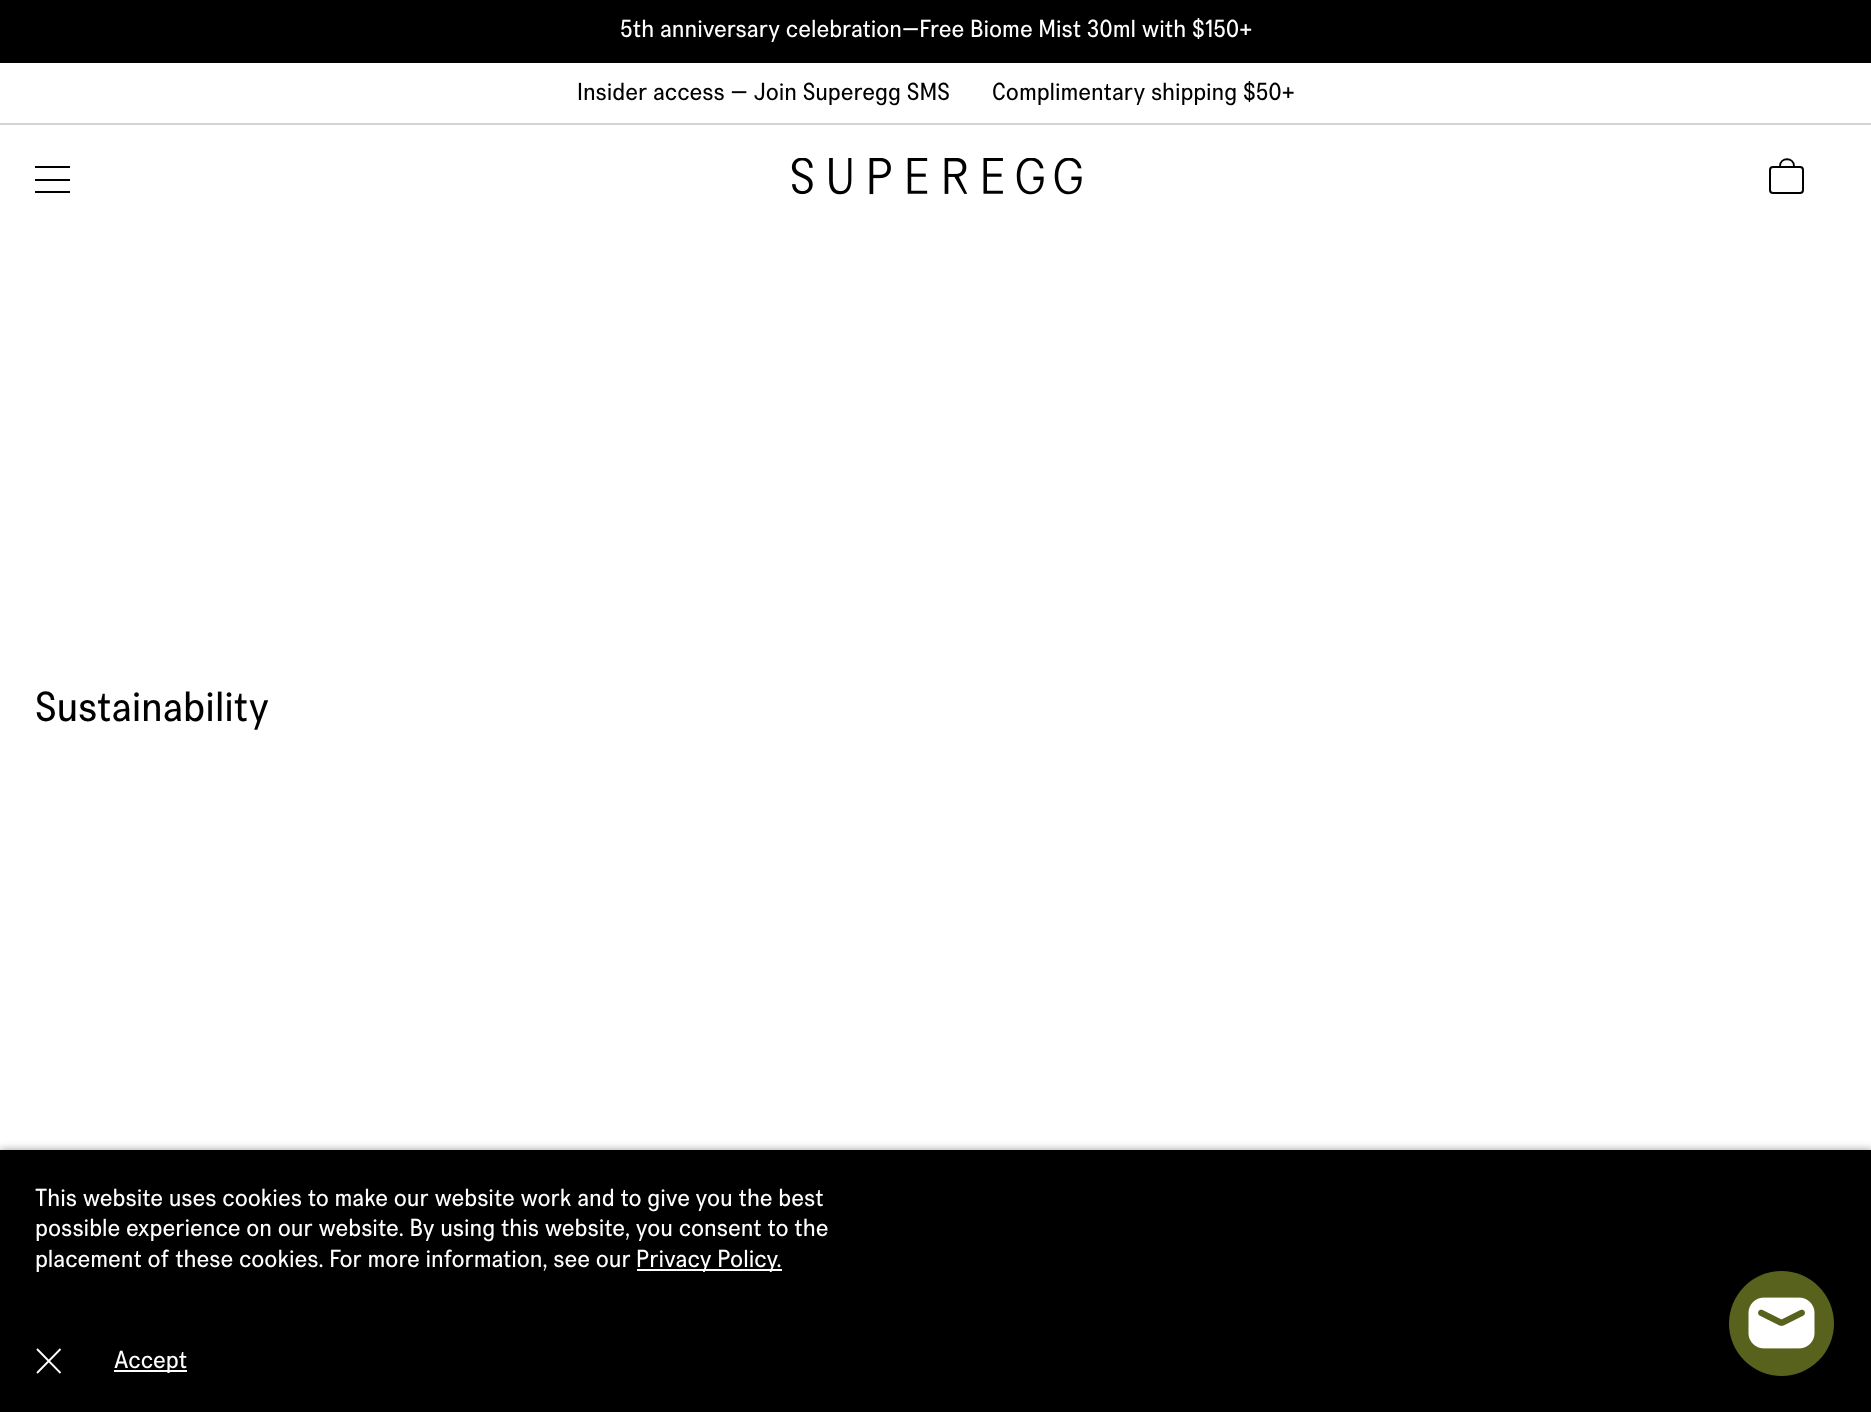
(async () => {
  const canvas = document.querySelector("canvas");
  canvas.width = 1871;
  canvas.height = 1412;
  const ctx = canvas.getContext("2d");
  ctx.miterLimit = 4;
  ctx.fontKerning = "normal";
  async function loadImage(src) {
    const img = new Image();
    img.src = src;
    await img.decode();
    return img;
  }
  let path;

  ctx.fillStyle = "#ffffff";
  ctx.fillRect(0, 0, 1871, 1412);
  for (const [x, y, w, h, color] of [
    [0, 0, 1871, 63, "#000000"],
    [0, 123, 1871, 2, "#d4d4d4"],
    [35, 166, 35, 2, "#000000"],
    [35, 179, 35, 2, "#000000"],
    [35, 191, 35, 2, "#000000"],
  ]) {
    ctx.fillStyle = color;
    ctx.fillRect(x, y, w, h);
  }
  ctx.drawImage(await loadImage("img/1.png"), 791, 158, 291, 37);
  path = new Path2D("M1794 166C1794 157 1780 157 1780 166");
  ctx.strokeStyle = "#000000";
  ctx.lineWidth = 1.8;
  ctx.stroke(path);
  ctx.beginPath();
  ctx.roundRect(1770, 167, 33, 26, 3);
  ctx.lineWidth = 2;
  ctx.stroke();
  ctx.fillStyle = "rgba(0, 0, 0, 0.4)";
  ctx.filter = "blur(4.5px)";
  ctx.beginPath();
  ctx.rect(0, 1150, 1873, 262);
  ctx.fill();
  ctx.filter = "none";
  ctx.fillStyle = "#000000";
  ctx.fillRect(0, 1150, 1871, 262);
  ctx.fillStyle = "#ffffff";
  ctx.fillRect(637, 1269, 145, 2);
  path = new Path2D("M60.5 1373L37 1349M37 1373L60.5 1349");
  ctx.strokeStyle = "#ffffff";
  ctx.lineWidth = 1.8;
  ctx.stroke(path);
  ctx.fillRect(114, 1370, 73, 2);
  ctx.fillStyle = "#59621d";
  ctx.beginPath();
  ctx.arc(1781.5, 1323.5, 52.5, 0, Math.PI * 2);
  ctx.fill();
  ctx.drawImage(await loadImage("img/2.png"), 1748, 1297, 67, 52);
  ctx.font = "24.5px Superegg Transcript";
  ctx.fillStyle = "#ffffff";
  ctx.fillText("5th anniversary celebration—Free Biome Mist 30ml with $150+", 620, 37);
  ctx.fillStyle = "#000000";
  ctx.fillText("Insider access — Join Superegg SMS", 577, 100);
  ctx.fillText("Complimentary shipping $50+", 992, 100);
  ctx.font = "42px Superegg Transcript";
  ctx.fillText("Sustainability", 35, 721);
  ctx.font = "24.5px Superegg Transcript";
  ctx.fillStyle = "#ffffff";
  for (const [text, x, y] of [
    ["This website uses cookies to make our website work and to give you the best", 35, 1206],
    ["possible experience on our website. By using this website, you consent to the", 35, 1236],
    ["placement of these cookies. For more information, see our", 35, 1267],
    ["Privacy Policy.", 636, 1267],
    ["Accept", 114, 1368],
  ]) {
    ctx.fillText(text, x, y);
  }
})();
